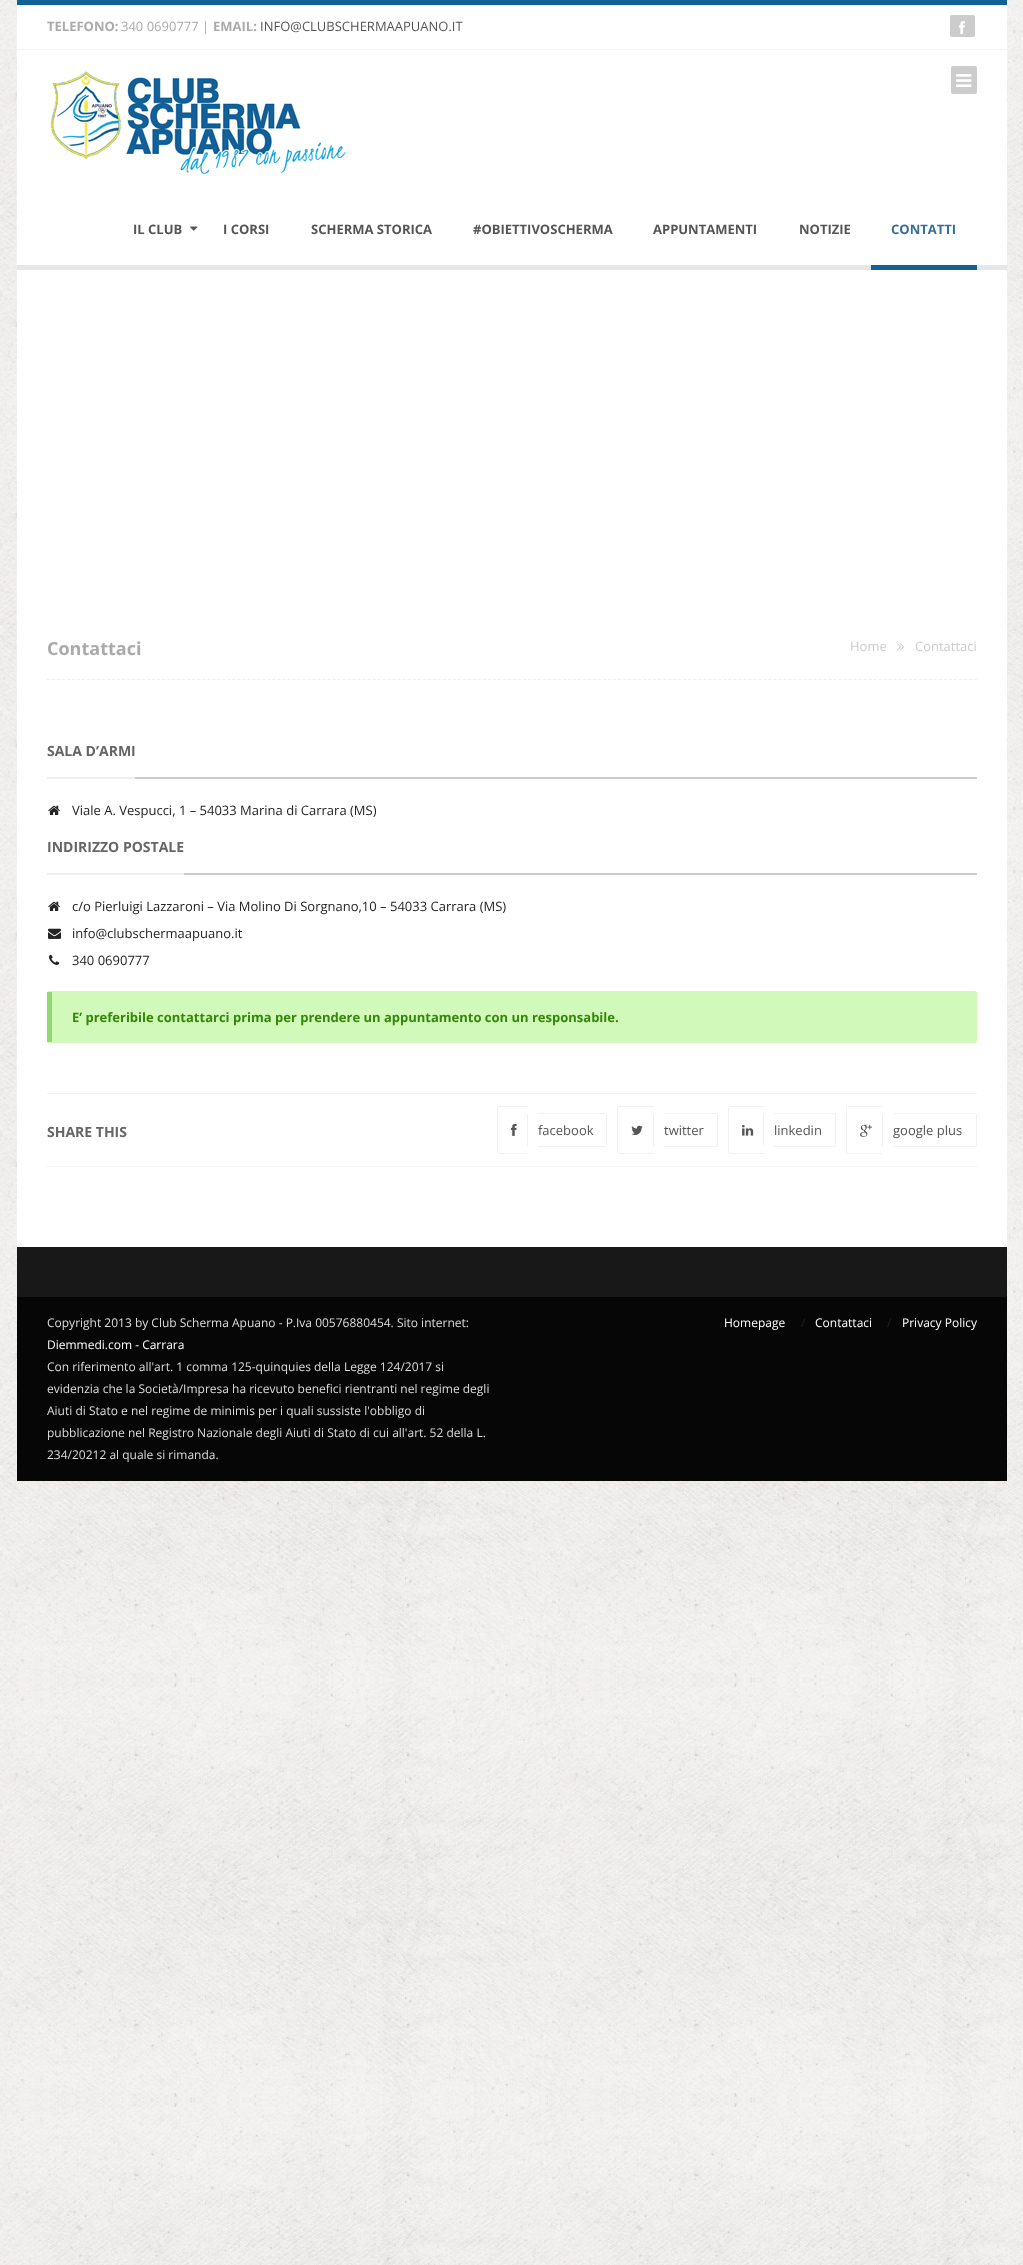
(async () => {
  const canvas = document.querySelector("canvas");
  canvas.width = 1023;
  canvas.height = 2265;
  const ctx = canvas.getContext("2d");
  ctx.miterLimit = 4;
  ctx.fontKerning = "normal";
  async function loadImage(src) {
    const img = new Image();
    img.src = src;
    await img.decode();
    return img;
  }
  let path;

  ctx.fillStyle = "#ffffff";
  ctx.fillRect(0, 0, 1023, 2265);
  ctx.drawImage(await loadImage("img/1.png"), 0, 0, 1023, 2265);
  for (const [x, y, w, h, color] of [
    [17, 5, 990, 1242, "#ffffff"],
    [17, 0, 990, 5, "#136098"],
    [17, 49, 990, 1, "#f1f1f1"],
  ]) {
    ctx.fillStyle = color;
    ctx.fillRect(x, y, w, h);
  }
  ctx.fillStyle = "#cccccc";
  ctx.beginPath();
  ctx.roundRect(950, 15, 25, 22, 2);
  ctx.fill();
  ctx.drawImage(await loadImage("img/2.png"), 959, 21, 6, 13);
  ctx.fillStyle = "#e6e6e6";
  ctx.fillRect(17, 265, 990, 5);
  ctx.drawImage(await loadImage("img/3.png"), 49, 71, 297, 103);
  ctx.fillStyle = "#cccccc";
  ctx.beginPath();
  ctx.roundRect(951, 66, 26, 28, 2);
  ctx.fill();
  ctx.drawImage(await loadImage("img/4.png"), 956, 74, 16, 13);
  ctx.drawImage(await loadImage("img/5.png"), 190, 226, 8, 5);
  ctx.fillStyle = "#136098";
  ctx.fillRect(871, 265, 106, 5);
  path = new Path2D("M47 679.5H977");
  ctx.strokeStyle = "#eeeeee";
  ctx.setLineDash([3, 2.01]);
  ctx.stroke(path);
  ctx.drawImage(await loadImage("img/6.png"), 897, 643, 7, 8);
  ctx.fillStyle = "#cccccc";
  ctx.fillRect(135, 777, 842, 2);
  ctx.fillStyle = "#eeeeee";
  ctx.fillRect(47, 777, 88, 2);
  ctx.drawImage(await loadImage("img/7.png"), 48, 805, 12, 10);
  ctx.fillStyle = "#cccccc";
  ctx.fillRect(184, 873, 793, 2);
  ctx.fillStyle = "#eeeeee";
  ctx.fillRect(47, 873, 137, 2);
  ctx.drawImage(await loadImage("img/7.png"), 48, 901, 12, 10);
  ctx.drawImage(await loadImage("img/8.png"), 48, 928, 13, 11);
  ctx.drawImage(await loadImage("img/9.png"), 49, 954, 11, 11);
  ctx.fillStyle = "#d0f9ba";
  ctx.beginPath();
  ctx.roundRect(47, 991, 930, 52, 2);
  ctx.fill();
  for (const [x, y, w, h, color] of [
    [47, 992, 5, 50, "#94d96f"],
    [47, 1093, 930, 1, "#f1f1f1"],
    [47, 1166, 930, 1, "#f1f1f1"],
    [498, 1106, 30, 1, "#f1f1f1"],
    [498, 1153, 30, 1, "#f1f1f1"],
    [497, 1107, 1, 46, "#f1f1f1"],
    [538, 1113, 68, 1, "#f1f1f1"],
    [606, 1114, 1, 32, "#f1f1f1"],
    [538, 1146, 68, 1, "#f1f1f1"],
    [527, 1114, 1, 32, "#f1f1f1"],
  ]) {
    ctx.fillStyle = color;
    ctx.fillRect(x, y, w, h);
  }
  ctx.drawImage(await loadImage("img/10.png"), 511, 1124, 6, 12);
  for (const [x, y, w, h, color] of [
    [618, 1106, 36, 1, "#f1f1f1"],
    [618, 1153, 36, 1, "#f1f1f1"],
    [617, 1107, 1, 46, "#f1f1f1"],
    [664, 1113, 53, 1, "#f1f1f1"],
    [717, 1114, 1, 32, "#f1f1f1"],
    [664, 1146, 53, 1, "#f1f1f1"],
    [653, 1114, 1, 32, "#f1f1f1"],
  ]) {
    ctx.fillStyle = color;
    ctx.fillRect(x, y, w, h);
  }
  ctx.drawImage(await loadImage("img/11.png"), 631, 1125, 12, 10);
  for (const [x, y, w, h, color] of [
    [729, 1106, 35, 1, "#f1f1f1"],
    [729, 1153, 35, 1, "#f1f1f1"],
    [728, 1107, 1, 46, "#f1f1f1"],
    [774, 1113, 61, 1, "#f1f1f1"],
    [835, 1114, 1, 32, "#f1f1f1"],
    [774, 1146, 61, 1, "#f1f1f1"],
    [763, 1114, 1, 32, "#f1f1f1"],
  ]) {
    ctx.fillStyle = color;
    ctx.fillRect(x, y, w, h);
  }
  ctx.drawImage(await loadImage("img/12.png"), 742, 1124, 12, 12);
  for (const [x, y, w, h, color] of [
    [847, 1106, 36, 1, "#f1f1f1"],
    [847, 1153, 36, 1, "#f1f1f1"],
    [846, 1107, 1, 46, "#f1f1f1"],
    [893, 1113, 83, 1, "#f1f1f1"],
    [976, 1114, 1, 32, "#f1f1f1"],
    [893, 1146, 83, 1, "#f1f1f1"],
    [882, 1114, 1, 32, "#f1f1f1"],
  ]) {
    ctx.fillStyle = color;
    ctx.fillRect(x, y, w, h);
  }
  ctx.drawImage(await loadImage("img/13.png"), 860, 1124, 13, 13);
  ctx.fillStyle = "#181818";
  ctx.fillRect(17, 1247, 990, 50);
  ctx.fillStyle = "#060606";
  ctx.fillRect(17, 1297, 990, 184);
  ctx.font = "bold 13px Open Sans";
  ctx.fillStyle = "#aaaaaa";
  ctx.fillText("TELEFONO:", 47, 31);
  ctx.font = "13px Open Sans";
  ctx.fillText("340 0690777 |", 121, 31);
  ctx.font = "bold 13px Open Sans";
  ctx.fillText("EMAIL:", 213, 31);
  ctx.font = "13px Open Sans";
  ctx.fillStyle = "#555555";
  ctx.fillText("INFO@CLUBSCHERMAAPUANO.IT", 260, 31);
  ctx.font = "bold 13px Open Sans";
  for (const [text, x, y] of [
    ["IL CLUB", 133, 234],
    ["I CORSI", 223, 234],
    ["SCHERMA STORICA", 311, 234],
    ["#OBIETTIVOSCHERMA", 473, 234],
    ["APPUNTAMENTI", 653, 234],
    ["NOTIZIE", 799, 234],
  ]) {
    ctx.fillText(text, x, y);
  }
  ctx.fillStyle = "#346e99";
  ctx.fillText("CONTATTI", 891, 234);
  ctx.font = "bold 18px Open Sans";
  ctx.fillStyle = "#aaaaaa";
  ctx.fillText("Contattaci", 47, 655);
  ctx.font = "13px Open Sans";
  ctx.fillStyle = "#cccccc";
  ctx.fillText("Home", 850, 651);
  ctx.fillText("Contattaci", 915, 651);
  ctx.font = "bold 14px Open Sans";
  ctx.fillStyle = "#666666";
  ctx.fillText("SALA D’ARMI", 47, 756);
  ctx.font = "13px Open Sans";
  ctx.fillStyle = "#232323";
  ctx.fillText("Viale A. Vespucci, 1 – 54033 Marina di Carrara (MS)", 72, 815);
  ctx.font = "bold 14px Open Sans";
  ctx.fillStyle = "#666666";
  ctx.fillText("INDIRIZZO POSTALE", 47, 852);
  ctx.font = "13px Open Sans";
  ctx.fillStyle = "#232323";
  for (const [text, x, y] of [
    ["c/o Pierluigi Lazzaroni – Via Molino Di Sorgnano,10 – 54033 Carrara (MS)", 72, 911],
    ["info@clubschermaapuano.it", 72, 938],
    ["340 0690777", 72, 965],
  ]) {
    ctx.fillText(text, x, y);
  }
  ctx.font = "bold 13px Open Sans";
  ctx.fillStyle = "#348806";
  ctx.fillText("E’ preferibile contattarci prima per prendere un appuntamento con un responsabile.", 72, 1022);
  ctx.font = "bold 14px Open Sans";
  ctx.fillStyle = "#666666";
  ctx.fillText("SHARE THIS", 47, 1137);
  ctx.font = "13px Open Sans";
  ctx.fillStyle = "#555555";
  for (const [text, x, y] of [
    ["facebook", 538, 1135],
    ["twitter", 664, 1135],
    ["linkedin", 774, 1135],
    ["google plus", 893, 1135],
  ]) {
    ctx.fillText(text, x, y);
  }
  ctx.font = "12px Open Sans";
  ctx.fillStyle = "#dddddd";
  ctx.fillText("Copyright 2013 by Club Scherma Apuano - P.Iva 00576880454. Sito internet:", 47, 1327);
  ctx.fillStyle = "#ffffff";
  ctx.fillText("Diemmedi.com - Carrara", 47, 1349);
  ctx.fillStyle = "#dddddd";
  for (const [text, x, y] of [
    ["Con riferimento all'art. 1 comma 125-quinquies della Legge 124/2017 si", 47, 1371],
    ["evidenzia che la Società/Impresa ha ricevuto benefici rientranti nel regime degli", 47, 1393],
    ["Aiuti di Stato e nel regime de minimis per i quali sussiste l'obbligo di", 47, 1415],
    ["pubblicazione nel Registro Nazionale degli Aiuti di Stato di cui all'art. 52 della L.", 47, 1437],
    ["234/20212 al quale si rimanda.", 47, 1459],
  ]) {
    ctx.fillText(text, x, y);
  }
  ctx.fillStyle = "#ffffff";
  ctx.fillText("Homepage", 724, 1327);
  ctx.fillStyle = "#232323";
  ctx.fillText("/", 801, 1327);
  ctx.fillStyle = "#ffffff";
  ctx.fillText("Contattaci", 815, 1327);
  ctx.fillStyle = "#232323";
  ctx.fillText("/", 887, 1327);
  ctx.fillStyle = "#ffffff";
  ctx.fillText("Privacy Policy", 902, 1327);
})();
